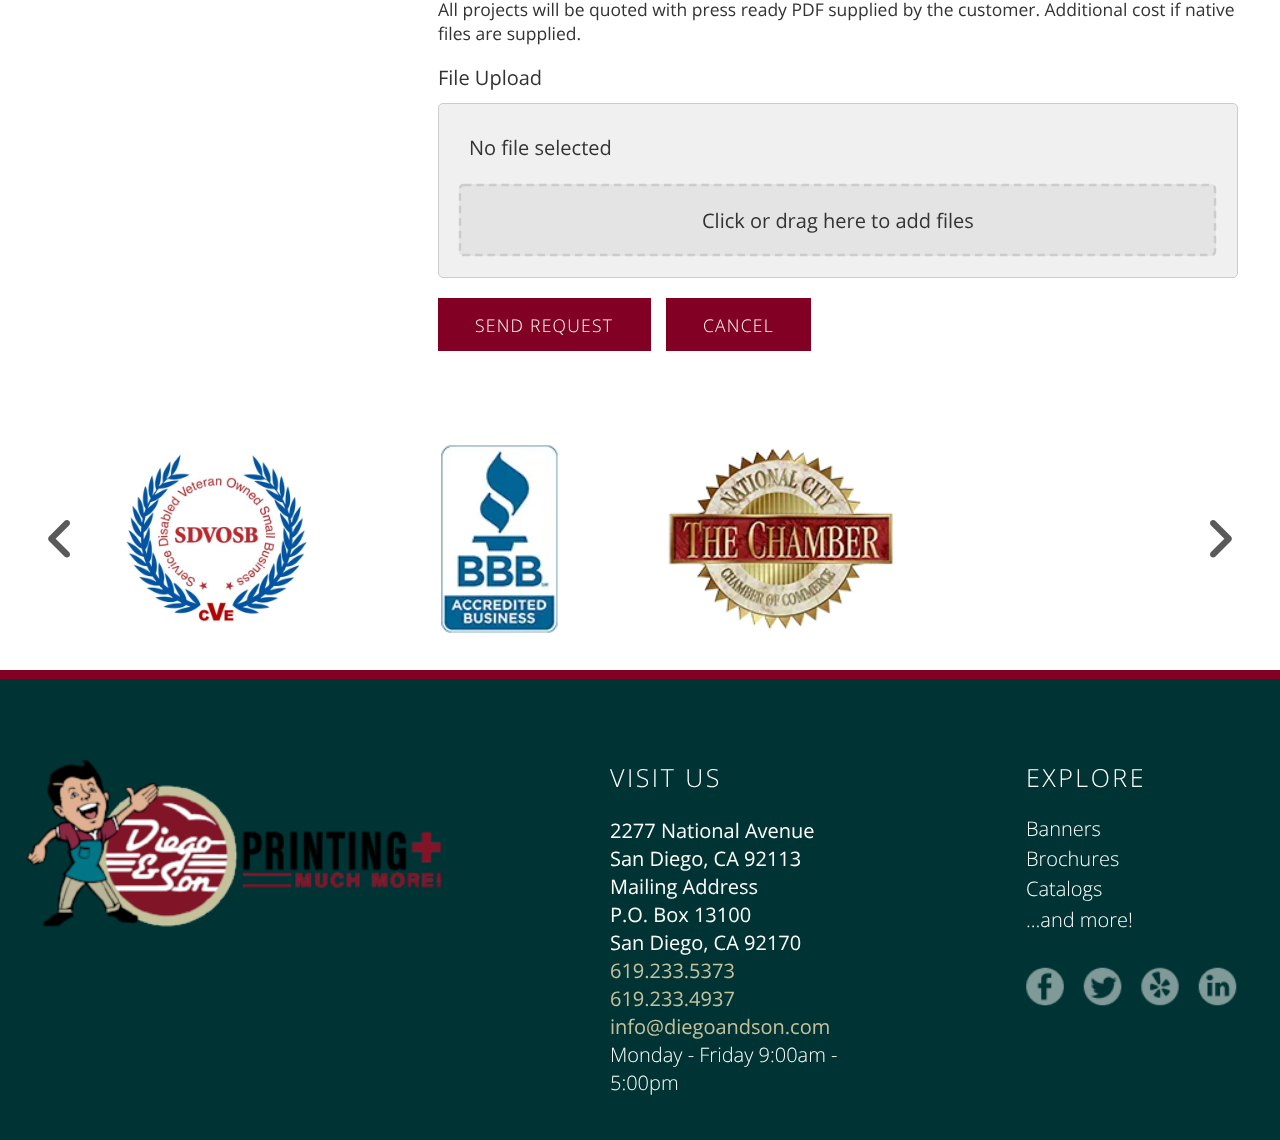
(async () => {
  const canvas = document.querySelector("canvas");
  canvas.width = 1280;
  canvas.height = 1140;
  const ctx = canvas.getContext("2d");
  ctx.miterLimit = 4;
  ctx.fontKerning = "normal";
  async function loadImage(src) {
    const img = new Image();
    img.src = src;
    await img.decode();
    return img;
  }
  let path;

  ctx.fillStyle = "#003333";
  ctx.fillRect(0, 0, 1280, 1140);
  ctx.fillStyle = "#ffffff";
  ctx.fillRect(0, 0, 1280, 670);
  ctx.fillStyle = "#f0f0f0";
  ctx.beginPath();
  ctx.roundRect(438.5, 103.5, 799, 174, 4.5);
  ctx.fill();
  ctx.strokeStyle = "#cccccc";
  ctx.stroke();
  ctx.fillStyle = "#e4e4e4";
  ctx.beginPath();
  ctx.roundRect(459, 184, 757, 72, 5);
  ctx.fill();
  path = new Path2D("M464 185H1211C1213.5 185 1215 186.5 1215 189V251C1215 253.5 1213.5 255 1211 255H464C461.5 255 460 253.5 460 251V189C460 186.5 461.5 185 464 185Z");
  ctx.lineWidth = 2.5;
  ctx.setLineDash([7.5, 5]);
  ctx.stroke(path);
  ctx.fillStyle = "#820024";
  ctx.fillRect(438, 298, 213, 53);
  ctx.fillRect(666, 298, 145, 53);
  ctx.drawImage(await loadImage("img/1.png"), 126, 454, 182, 168);
  ctx.drawImage(await loadImage("img/2.png"), 441, 445, 117, 188);
  ctx.drawImage(await loadImage("img/3.png"), 668, 448, 225, 183);
  ctx.drawImage(await loadImage("img/4.png"), 48, 520, 22, 38);
  ctx.drawImage(await loadImage("img/5.png"), 1210, 520, 22, 38);
  ctx.fillRect(0, 670, 1280, 9);
  ctx.drawImage(await loadImage("img/6.png"), 26, 759, 416, 168);
  ctx.drawImage(await loadImage("img/7.png"), 1026, 967, 38, 39);
  ctx.drawImage(await loadImage("img/8.png"), 1083, 967, 39, 39);
  ctx.drawImage(await loadImage("img/9.png"), 1141, 967, 38, 39);
  ctx.drawImage(await loadImage("img/10.png"), 1198, 967, 39, 39);
  ctx.font = "17.5px Open Sans";
  ctx.fillStyle = "#333333";
  ctx.fillText("All projects will be quoted with press ready PDF supplied by the customer. Additional cost if native", 438, 16);
  ctx.fillText("files are supplied.", 438, 40);
  ctx.font = "20px Open Sans";
  for (const [text, x, y] of [
    ["File Upload", 438, 85],
    ["No file selected", 469, 155],
    ["Click or drag here to add files", 702, 228],
  ]) {
    ctx.fillText(text, x, y);
  }
  ctx.letterSpacing = "1.25px";
  ctx.font = "300 17.5px Open Sans";
  ctx.fillStyle = "#ffffff";
  ctx.fillText("SEND REQUEST", 475, 332);
  ctx.fillText("CANCEL", 703, 332);
  ctx.letterSpacing = "2.5px";
  ctx.font = "300 25px Open Sans";
  ctx.fillText("VISIT US", 610, 787);
  ctx.letterSpacing = "0px";
  ctx.font = "20px Open Sans";
  for (const [text, x, y] of [
    ["2277 National Avenue", 610, 838],
    ["San Diego, CA 92113", 610, 866],
    ["Mailing Address", 610, 894],
    ["P.O. Box 13100", 610, 922],
    ["San Diego, CA 92170", 610, 950],
  ]) {
    ctx.fillText(text, x, y);
  }
  ctx.fillStyle = "#c5c19d";
  for (const [text, x, y] of [
    ["619.233.5373", 610, 978],
    ["619.233.4937", 610, 1006],
    ["info@diegoandson.com", 610, 1034],
  ]) {
    ctx.fillText(text, x, y);
  }
  ctx.font = "300 20px Open Sans";
  ctx.fillStyle = "#ffffff";
  ctx.fillText("Monday - Friday 9:00am -", 610, 1062);
  ctx.fillText("5:00pm", 610, 1090);
  ctx.letterSpacing = "2.5px";
  ctx.font = "300 25px Open Sans";
  ctx.fillText("EXPLORE", 1026, 787);
  ctx.letterSpacing = "0px";
  ctx.font = "300 20px Open Sans";
  for (const [text, x, y] of [
    ["Banners", 1026, 836],
    ["Brochures", 1026, 866],
    ["Catalogs", 1026, 896],
    ["...and more!", 1026, 927],
  ]) {
    ctx.fillText(text, x, y);
  }
})();
